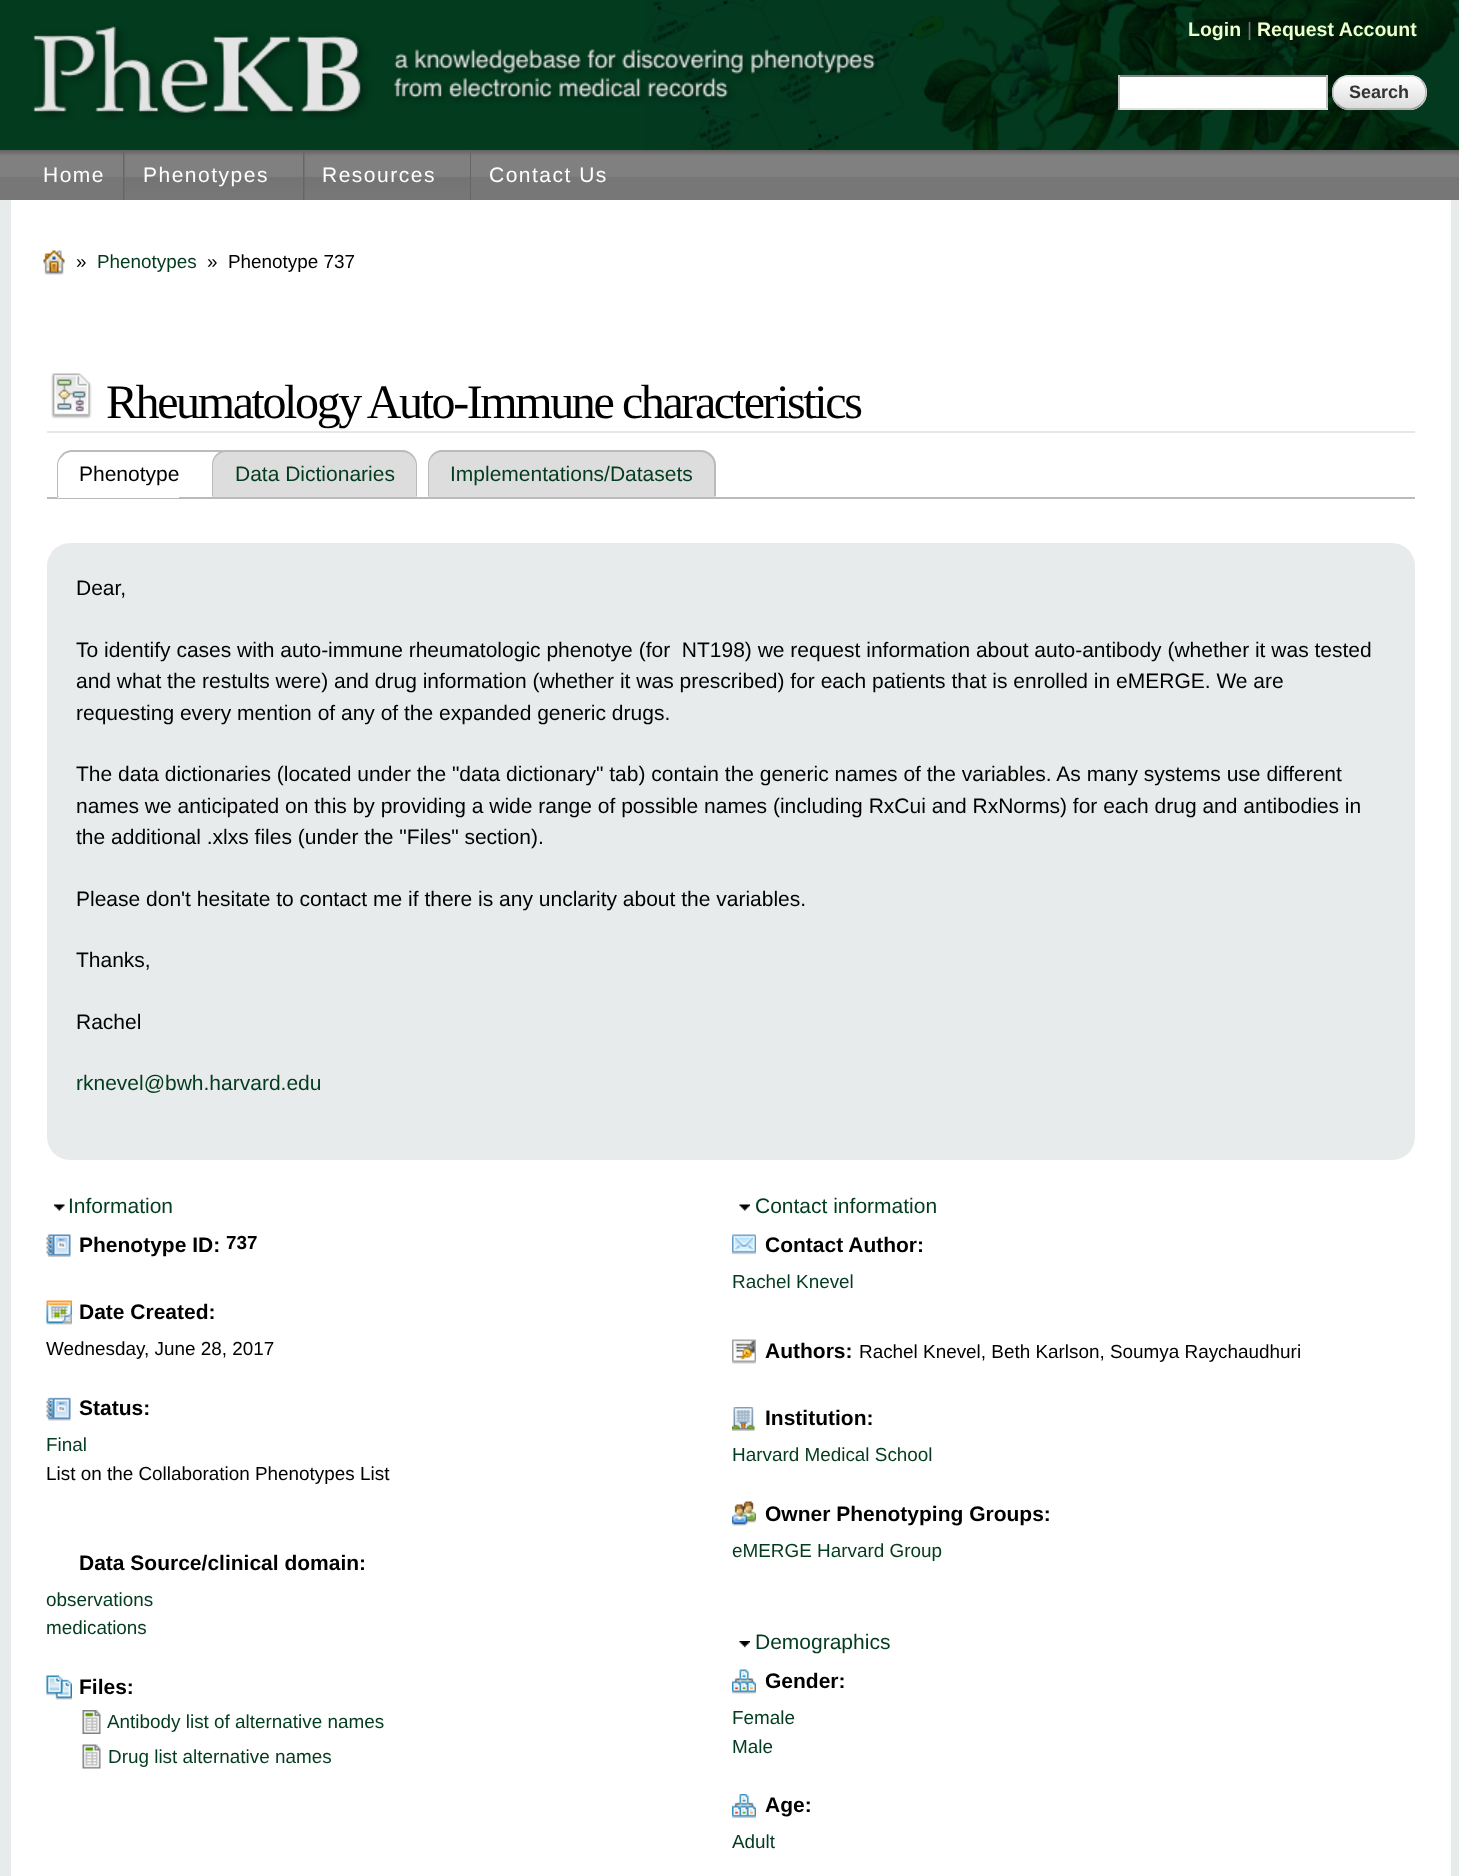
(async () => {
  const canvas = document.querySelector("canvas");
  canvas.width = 1459;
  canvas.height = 1876;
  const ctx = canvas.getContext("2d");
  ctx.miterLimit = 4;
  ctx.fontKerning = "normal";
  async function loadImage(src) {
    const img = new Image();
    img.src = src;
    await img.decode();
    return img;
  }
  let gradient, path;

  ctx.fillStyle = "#e8ebeb";
  ctx.fillRect(0, 0, 1459, 1876);
  ctx.fillStyle = "#033b1e";
  ctx.fillRect(0, 0, 644, 150);
  ctx.drawImage(await loadImage("img/1.png"), 644, 0, 815, 150);
  ctx.drawImage(await loadImage("img/2.png"), 33, 26, 845, 94);
  for (const [x, y, w, h, color] of [
    [1120, 77, 206, 31, "#ffffff"],
    [1118, 75, 210, 2, "#848484"],
    [1326, 75, 2, 35, "#c1c1c1"],
    [1118, 108, 210, 2, "#e1e1e1"],
    [1118, 75, 2, 35, "#c1c1c1"],
  ]) {
    ctx.fillStyle = color;
    ctx.fillRect(x, y, w, h);
  }
  ctx.save();
  ctx.beginPath();
  ctx.roundRect(1332, 75, 95, 35, 17);
  ctx.clip();
  gradient = ctx.createLinearGradient(1334, 45, 1334, 77);
  gradient.addColorStop(0, "#ffffff");
  gradient.addColorStop(1, "#dddddd");
  ctx.fillStyle = gradient;
  ctx.fillRect(1341, 75, 77, 2);
  gradient = ctx.createLinearGradient(1334, 77, 1334, 108);
  gradient.addColorStop(0, "#ffffff");
  gradient.addColorStop(1, "#dddddd");
  ctx.fillStyle = gradient;
  ctx.fillRect(1332, 77, 95, 31);
  gradient = ctx.createLinearGradient(1334, 108, 1334, 140);
  gradient.addColorStop(0, "#ffffff");
  gradient.addColorStop(1, "#dddddd");
  ctx.fillStyle = gradient;
  ctx.fillRect(1341, 108, 77, 2);
  ctx.restore();
  path = new Path2D("M1337.5 80.5C1340.5 77.5 1344.5 76 1348.5 76H1410C1414 76 1418 77.5 1421 80.5");
  ctx.strokeStyle = "#dddddd";
  ctx.lineWidth = 1.5;
  ctx.stroke(path);
  path = new Path2D("M1421 80.5C1427.5 86.5 1427.5 98 1421 104");
  ctx.strokeStyle = "#bbbbbb";
  ctx.stroke(path);
  path = new Path2D("M1421 104C1418 107 1414 109 1410 109H1348.5C1344.5 109 1340.5 107 1337.5 104");
  ctx.strokeStyle = "#999999";
  ctx.stroke(path);
  path = new Path2D("M1337.5 104C1331 98 1331 86.5 1337.5 80.5");
  ctx.strokeStyle = "#bbbbbb";
  ctx.stroke(path);
  ctx.fillStyle = "#777777";
  ctx.fillRect(0, 177, 1459, 23);
  ctx.drawImage(await loadImage("img/3.png"), 0, 150, 1459, 27);
  ctx.drawImage(await loadImage("img/4.png"), 26, 150, 97, 27);
  ctx.fillStyle = "#666666";
  ctx.fillRect(123, 150, 2, 50);
  ctx.drawImage(await loadImage("img/5.png"), 124, 150, 179, 50);
  ctx.fillRect(303, 150, 2, 50);
  ctx.drawImage(await loadImage("img/6.png"), 304, 150, 166, 50);
  ctx.fillRect(470, 150, 1, 50);
  ctx.drawImage(await loadImage("img/7.png"), 471, 150, 156, 27);
  ctx.fillStyle = "#ffffff";
  ctx.fillRect(11, 200, 1440, 1676);
  ctx.drawImage(await loadImage("img/8.png"), 43, 250, 22, 25);
  ctx.drawImage(await loadImage("img/9.png"), 51, 373, 41, 46);
  ctx.fillStyle = "#e8e8e8";
  ctx.fillRect(47, 431, 1368, 2);
  ctx.fillStyle = "#bbbbbb";
  ctx.fillRect(47, 497, 1368, 2);
  ctx.fillStyle = "#ffffff";
  ctx.beginPath();
  ctx.roundRect(57, 450, 122, 48, [15, 0, 0, 0]);
  ctx.fill();
  ctx.fillStyle = "#bbbbbb";
  path = new Path2D("M72 450C68 450 64 452 62 454L63 456C65 453 69 452 72 452H178V450Z");
  ctx.fill(path);
  path = new Path2D("M57 498L59 496H58V465C58 461 60 458 63 456L62 454C59 457 57 461 57 465Z");
  ctx.fill(path);
  path = new Path2D("M178 450H291C295 450 299 452 302 454L300 456C298 454 294 452 291 452H178Z");
  ctx.fill(path);
  ctx.fillStyle = "#dddddd";
  ctx.beginPath();
  ctx.roundRect(212, 450, 205, 47, [15, 15, 0, 0]);
  ctx.fill();
  ctx.fillStyle = "#bbbbbb";
  path = new Path2D("M226 450H402C410 450 417 457 417 465V496H212V465C212 457 218 450 226 450ZM226 452H402C409 452 416 458 416 465V496H213V465C213 458 219 452 226 452Z");
  ctx.fill(path, "evenodd");
  ctx.fillStyle = "#dddddd";
  ctx.beginPath();
  ctx.roundRect(428, 450, 288, 47, [15, 15, 0, 0]);
  ctx.fill();
  ctx.fillStyle = "#bbbbbb";
  path = new Path2D("M442 450H700C709 450 716 457 716 465V496H428V465C428 457 434 450 442 450ZM442 452H700C708 452 714 458 714 465V496H429V465C429 458 435 452 442 452Z");
  ctx.fill(path, "evenodd");
  ctx.fillStyle = "#e8ebeb";
  ctx.beginPath();
  ctx.roundRect(47, 543, 1368, 617, 23);
  ctx.fill();
  ctx.drawImage(await loadImage("img/10.png"), 54, 1204, 11, 7);
  ctx.drawImage(await loadImage("img/11.png"), 46, 1234, 25, 23);
  ctx.drawImage(await loadImage("img/12.png"), 46, 1300, 26, 25);
  ctx.drawImage(await loadImage("img/13.png"), 46, 1397, 25, 24);
  ctx.drawImage(await loadImage("img/14.png"), 46, 1675, 26, 25);
  ctx.drawImage(await loadImage("img/15.png"), 82, 1710, 19, 24);
  ctx.drawImage(await loadImage("img/16.png"), 82, 1744, 19, 25);
  ctx.drawImage(await loadImage("img/17.png"), 739, 1204, 11, 7);
  ctx.drawImage(await loadImage("img/18.png"), 732, 1234, 24, 21);
  ctx.drawImage(await loadImage("img/19.png"), 732, 1339, 24, 25);
  ctx.drawImage(await loadImage("img/20.png"), 732, 1407, 23, 24);
  ctx.drawImage(await loadImage("img/21.png"), 732, 1501, 24, 25);
  ctx.drawImage(await loadImage("img/22.png"), 739, 1641, 11, 7);
  ctx.drawImage(await loadImage("img/23.png"), 732, 1669, 24, 25);
  ctx.drawImage(await loadImage("img/24.png"), 732, 1794, 24, 24);
  ctx.font = "bold 19.5px Liberation Sans";
  ctx.fillStyle = "#eeffcc";
  ctx.fillText("Login", 1188, 36);
  ctx.font = "19.5px Liberation Sans";
  ctx.fillStyle = "#777777";
  ctx.fillText("|", 1247, 36);
  ctx.font = "bold 19.5px Liberation Sans";
  ctx.fillStyle = "#eeffcc";
  ctx.fillText("Request Account", 1257, 36);
  ctx.font = "bold 18px Liberation Sans";
  ctx.fillStyle = "#333333";
  ctx.fillText("Search", 1349, 98);
  ctx.letterSpacing = "1.5px";
  ctx.font = "21px Liberation Sans";
  ctx.fillStyle = "#ffffff";
  for (const [text, x, y] of [
    ["Home", 43, 182],
    ["Phenotypes", 143, 182],
    ["Resources", 322, 182],
    ["Contact Us", 489, 182],
  ]) {
    ctx.fillText(text, x, y);
  }
  ctx.letterSpacing = "0px";
  ctx.font = "18.9px Liberation Sans";
  ctx.fillStyle = "#000000";
  ctx.fillText("»", 76, 268);
  ctx.fillStyle = "#033b1e";
  ctx.fillText("Phenotypes", 97, 268);
  ctx.fillStyle = "#000000";
  ctx.fillText("»", 207, 268);
  ctx.fillText("Phenotype 737", 228, 268);
  ctx.letterSpacing = "-2.4px";
  ctx.font = "48px Liberation Serif";
  ctx.fillText("Rheumatology Auto-Immune characteristics", 106, 418);
  ctx.letterSpacing = "0px";
  ctx.font = "21px Liberation Sans";
  ctx.fillText("Phenotype", 79, 481);
  ctx.fillStyle = "#033b1e";
  ctx.fillText("Data Dictionaries", 235, 481);
  ctx.fillText("Implementations/Datasets", 450, 481);
  ctx.fillStyle = "#000000";
  for (const [text, x, y] of [
    ["Dear,", 76, 595],
    ["To identify cases with auto-immune rheumatologic phenotye (for  NT198) we request information about auto-antibody (whether it was tested", 76, 657],
    ["and what the restults were) and drug information (whether it was prescribed) for each patients that is enrolled in eMERGE. We are", 76, 688],
    ["requesting every mention of any of the expanded generic drugs.", 76, 720],
    ["The data dictionaries (located under the \"data dictionary\" tab) contain the generic names of the variables. As many systems use different", 76, 781],
    ["names we anticipated on this by providing a wide range of possible names (including RxCui and RxNorms) for each drug and antibodies in", 76, 813],
    ["the additional .xlxs files (under the \"Files\" section).", 76, 844],
    ["Please don't hesitate to contact me if there is any unclarity about the variables.", 76, 906],
    ["Thanks,", 76, 967],
    ["Rachel", 76, 1029],
  ]) {
    ctx.fillText(text, x, y);
  }
  ctx.fillStyle = "#033b1e";
  ctx.fillText("rknevel@bwh.harvard.edu", 76, 1090);
  ctx.fillText("Information", 68, 1213);
  ctx.font = "bold 21px Liberation Sans";
  ctx.fillStyle = "#000000";
  ctx.fillText("Phenotype ID:", 79, 1252);
  ctx.font = "bold 18.9px Liberation Sans";
  ctx.fillText("737", 226, 1249);
  ctx.font = "bold 21px Liberation Sans";
  ctx.fillText("Date Created:", 79, 1319);
  ctx.font = "18.9px Liberation Sans";
  ctx.fillText("Wednesday, June 28, 2017", 46, 1355);
  ctx.font = "bold 21px Liberation Sans";
  ctx.fillText("Status:", 79, 1415);
  ctx.font = "18.9px Liberation Sans";
  ctx.fillStyle = "#033b1e";
  ctx.fillText("Final", 46, 1451);
  ctx.fillStyle = "#000000";
  ctx.fillText("List on the Collaboration Phenotypes List", 46, 1480);
  ctx.font = "bold 21px Liberation Sans";
  ctx.fillText("Data Source/clinical domain:", 79, 1570);
  ctx.font = "18.9px Liberation Sans";
  ctx.fillStyle = "#033b1e";
  ctx.fillText("observations", 46, 1606);
  ctx.fillText("medications", 46, 1634);
  ctx.font = "bold 21px Liberation Sans";
  ctx.fillStyle = "#000000";
  ctx.fillText("Files:", 79, 1694);
  ctx.font = "18.9px Liberation Sans";
  ctx.fillStyle = "#033b1e";
  ctx.fillText("Antibody list of alternative names", 107, 1728);
  ctx.fillText("Drug list alternative names", 108, 1763);
  ctx.font = "21px Liberation Sans";
  ctx.fillText("Contact information", 755, 1213);
  ctx.font = "bold 21px Liberation Sans";
  ctx.fillStyle = "#000000";
  ctx.fillText("Contact Author:", 765, 1252);
  ctx.font = "18.9px Liberation Sans";
  ctx.fillStyle = "#033b1e";
  ctx.fillText("Rachel Knevel", 732, 1288);
  ctx.font = "bold 21px Liberation Sans";
  ctx.fillStyle = "#000000";
  ctx.fillText("Authors:", 765, 1358);
  ctx.font = "18.9px Liberation Sans";
  ctx.fillText("Rachel Knevel, Beth Karlson, Soumya Raychaudhuri", 859, 1358);
  ctx.font = "bold 21px Liberation Sans";
  ctx.fillText("Institution:", 765, 1425);
  ctx.font = "18.9px Liberation Sans";
  ctx.fillStyle = "#033b1e";
  ctx.fillText("Harvard Medical School", 732, 1461);
  ctx.font = "bold 21px Liberation Sans";
  ctx.fillStyle = "#000000";
  ctx.fillText("Owner Phenotyping Groups:", 765, 1521);
  ctx.font = "18.9px Liberation Sans";
  ctx.fillStyle = "#033b1e";
  ctx.fillText("eMERGE Harvard Group", 732, 1557);
  ctx.font = "21px Liberation Sans";
  ctx.fillText("Demographics", 755, 1649);
  ctx.font = "bold 21px Liberation Sans";
  ctx.fillStyle = "#000000";
  ctx.fillText("Gender:", 765, 1688);
  ctx.font = "18.9px Liberation Sans";
  ctx.fillStyle = "#033b1e";
  ctx.fillText("Female", 732, 1724);
  ctx.fillText("Male", 732, 1753);
  ctx.font = "bold 21px Liberation Sans";
  ctx.fillStyle = "#000000";
  ctx.fillText("Age:", 765, 1812);
  ctx.font = "18.9px Liberation Sans";
  ctx.fillStyle = "#033b1e";
  ctx.fillText("Adult", 732, 1848);
})();
